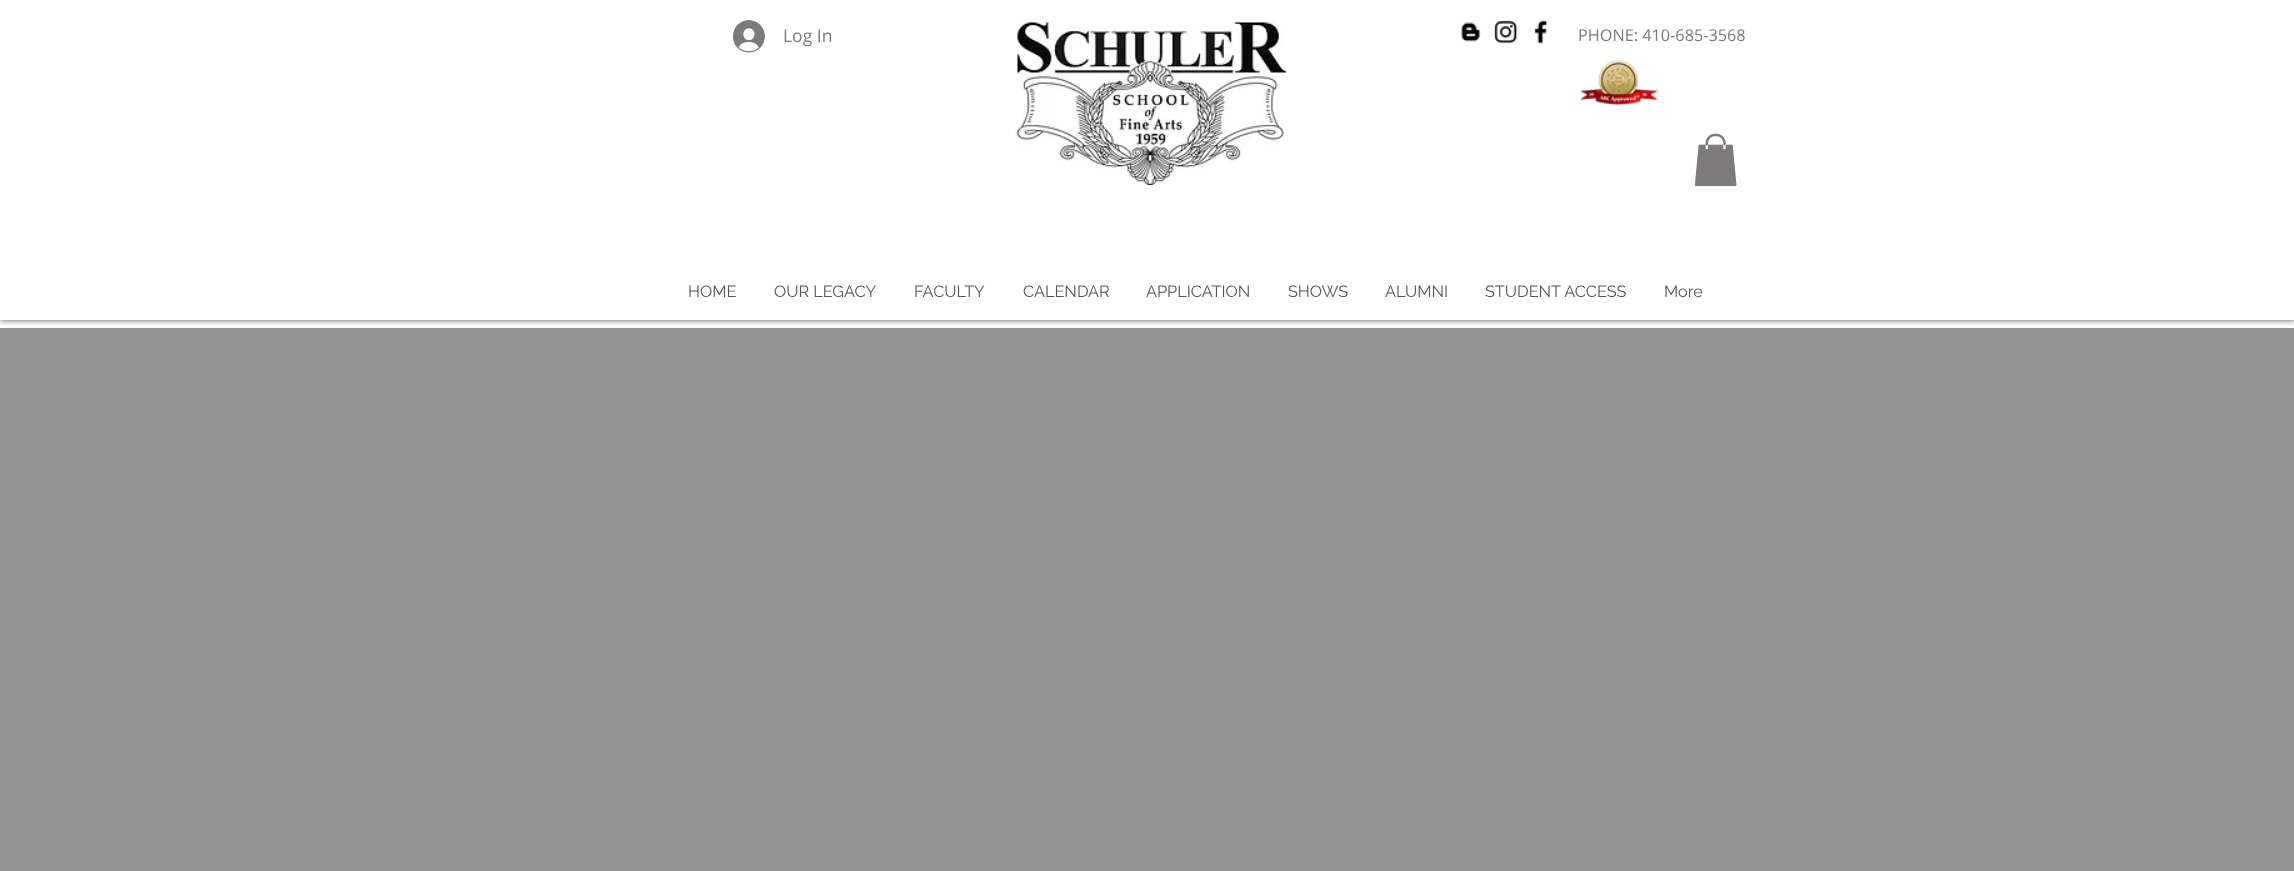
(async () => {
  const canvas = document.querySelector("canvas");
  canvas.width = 2294;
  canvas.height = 871;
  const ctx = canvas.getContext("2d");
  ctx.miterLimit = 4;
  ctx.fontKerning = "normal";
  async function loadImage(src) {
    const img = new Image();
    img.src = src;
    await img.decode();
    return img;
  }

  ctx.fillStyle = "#ffffff";
  ctx.fillRect(0, 0, 2294, 871);
  ctx.fillStyle = "rgba(0, 0, 0, 0.7)";
  ctx.filter = "blur(3px)";
  ctx.beginPath();
  ctx.rect(0, 0, 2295, 320);
  ctx.fill();
  ctx.filter = "none";
  ctx.fillStyle = "#ffffff";
  ctx.fillRect(0, 0, 2294, 320);
  ctx.drawImage(await loadImage("img/1.png"), 733, 20, 32, 33);
  ctx.drawImage(await loadImage("img/2.png"), 1015, 19, 272, 166);
  ctx.drawImage(await loadImage("img/3.png"), 1461, 22, 20, 20);
  ctx.drawImage(await loadImage("img/4.png"), 1494, 20, 24, 24);
  ctx.drawImage(await loadImage("img/5.png"), 1534, 20, 14, 24);
  ctx.drawImage(await loadImage("img/6.png"), 1580, 59, 78, 47);
  ctx.drawImage(await loadImage("img/7.png"), 1694, 133, 43, 54);
  ctx.fillStyle = "#939393";
  ctx.fillRect(0, 328, 2294, 543);
  ctx.font = "17.5px Open Sans";
  ctx.fillStyle = "#7c7a7a";
  ctx.fillText("Log In", 783, 42);
  ctx.font = "16.25px Open Sans";
  ctx.fillText("PHONE: 410-685-3568", 1578, 41);
  ctx.font = "16.25px Raleway";
  ctx.fillStyle = "#555555";
  for (const [text, x, y] of [
    ["HOME", 688, 297],
    ["OUR LEGACY", 774, 297],
    ["FACULTY", 914, 297],
    ["CALENDAR", 1023, 297],
    ["APPLICATION", 1146, 297],
    ["SHOWS", 1288, 297],
    ["ALUMNI", 1385, 297],
    ["STUDENT ACCESS", 1485, 297],
    ["More", 1664, 297],
  ]) {
    ctx.fillText(text, x, y);
  }
})();
